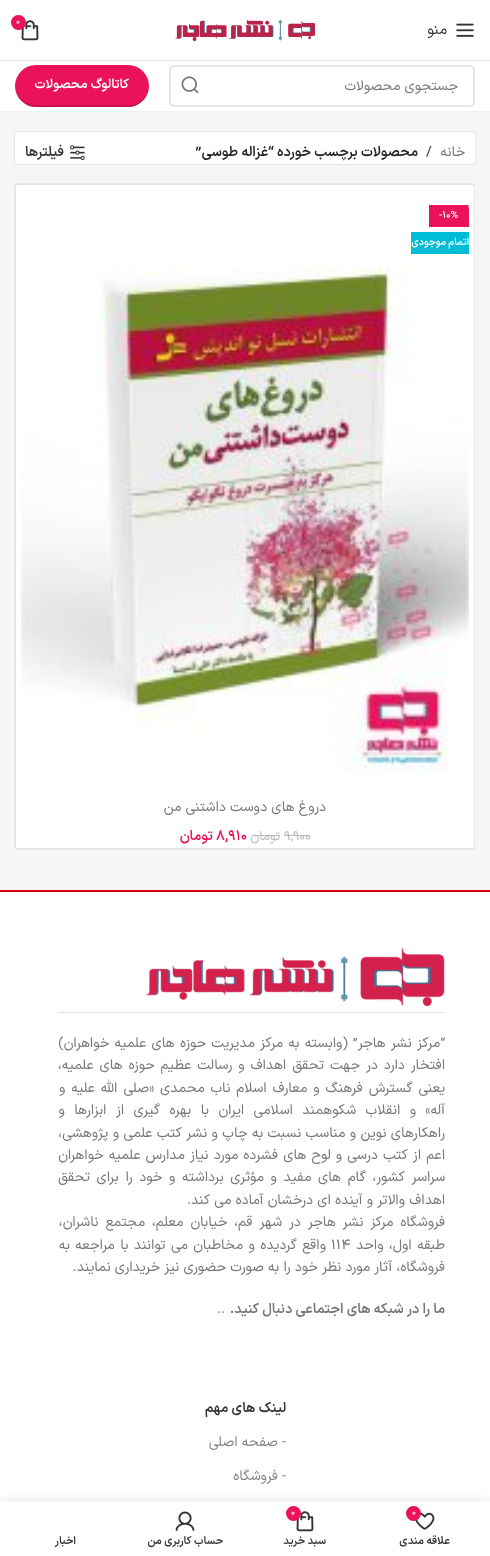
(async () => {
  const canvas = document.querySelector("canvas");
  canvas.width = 490;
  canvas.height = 1556;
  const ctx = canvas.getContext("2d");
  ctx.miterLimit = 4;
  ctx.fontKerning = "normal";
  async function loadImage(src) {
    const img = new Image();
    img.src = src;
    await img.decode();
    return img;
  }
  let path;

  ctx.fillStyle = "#ffffff";
  ctx.fillRect(0, 0, 490, 1556);
  ctx.fillStyle = "#e6e6e6";
  ctx.fillRect(0, 60, 490, 1);
  ctx.drawImage(await loadImage("img/1.png"), 175, 19, 140, 22);
  ctx.drawImage(await loadImage("img/2.png"), 21, 20, 18, 21);
  ctx.fillStyle = "#ea1359";
  ctx.beginPath();
  ctx.arc(18.5, 22.5, 7.5, 0, Math.PI * 2);
  ctx.fill();
  ctx.drawImage(await loadImage("img/3.png"), 456, 23, 18, 14);
  ctx.fillStyle = "#f2f2f2";
  ctx.fillRect(0, 111, 490, 1);
  ctx.beginPath();
  ctx.roundRect(170, 66, 304, 40, 4);
  ctx.strokeStyle = "#e6e6e6";
  ctx.lineWidth = 2;
  ctx.stroke();
  ctx.drawImage(await loadImage("img/4.png"), 181, 76, 18, 18);
  ctx.fillStyle = "#ea1359";
  ctx.beginPath();
  ctx.roundRect(15, 65, 134, 42, 21);
  ctx.fill();
  ctx.fillStyle = "rgba(0, 0, 0, 0.15)";
  path = new Path2D("M15 85C15 95 22 105 32 107H51H132C142 105 149 95 149 85C148 97 140 105 128 105H36C24 105 16 97 15 85Z");
  ctx.fill(path);
  ctx.fillStyle = "#f6f6f6";
  ctx.fillRect(0, 112, 490, 778);
  ctx.fillStyle = "#e6e6e6";
  ctx.filter = "blur(0.5px)";
  ctx.beginPath();
  ctx.roundRect(14, 131, 462, 34, 4);
  ctx.fill();
  ctx.filter = "none";
  ctx.fillStyle = "#ffffff";
  ctx.beginPath();
  ctx.roundRect(15, 132, 460, 32, 3);
  ctx.fill();
  ctx.drawImage(await loadImage("img/5.png"), 70, 145, 15, 15);
  ctx.fillStyle = "#dcdcdc";
  ctx.fillRect(474, 184, 1, 665);
  ctx.fillStyle = "#e6e6e6";
  ctx.filter = "blur(0.5px)";
  ctx.beginPath();
  ctx.roundRect(14, 183, 461, 667, 4);
  ctx.fill();
  ctx.filter = "none";
  ctx.fillStyle = "#ffffff";
  ctx.beginPath();
  ctx.roundRect(15, 184, 459, 665, 3);
  ctx.fill();
  ctx.fillStyle = "rgba(0, 0, 0, 0.11)";
  path = new Path2D("M18 184H471C473 184 474 185 474 187V846C474 848 473 849 471 849H18C16 849 15 848 15 846V187C15 185 16 184 18 184ZM18 185H471C473 185 474 186 474 187V846C474 847 473 848 471 848H18C17 848 16 847 16 846V187C16 186 17 185 18 185Z");
  ctx.fill(path, "evenodd");
  ctx.save();
  ctx.beginPath();
  ctx.roundRect(21, 190, 448, 599, 20);
  ctx.clip();
  ctx.fillStyle = "#ea1359";
  ctx.fillRect(429, 205, 40, 22);
  ctx.restore();
  ctx.fillStyle = "#00bcd4";
  ctx.fillRect(411, 232, 58, 22);
  ctx.drawImage(await loadImage("img/6.png"), 21, 266, 448, 507);
  for (const [x, y, w, h, color] of [
    [284, 835, 26, 1, "#bbbbbb"],
    [252, 835, 28, 1, "#bbbbbb"],
    [0, 890, 490, 2, "#cf0606"],
    [58, 1012, 387, 1, "#e1e1e1"],
  ]) {
    ctx.fillStyle = color;
    ctx.fillRect(x, y, w, h);
  }
  ctx.drawImage(await loadImage("img/7.png"), 145, 948, 300, 58);
  ctx.fillStyle = "rgba(0, 0, 0, 0.12)";
  ctx.filter = "blur(4.5px)";
  ctx.beginPath();
  ctx.rect(0, 1501, 490, 55);
  ctx.fill();
  ctx.filter = "none";
  ctx.fillStyle = "#ffffff";
  ctx.fillRect(0, 1501, 490, 55);
  ctx.drawImage(await loadImage("img/8.png"), 415, 1512, 20, 18);
  ctx.fillStyle = "#ea1359";
  ctx.beginPath();
  ctx.arc(413.5, 1513.5, 7.5, 0, Math.PI * 2);
  ctx.fill();
  ctx.drawImage(await loadImage("img/2.png"), 296, 1511, 18, 21);
  ctx.beginPath();
  ctx.arc(293.5, 1513.5, 7.5, 0, Math.PI * 2);
  ctx.fill();
  ctx.drawImage(await loadImage("img/9.png"), 175, 1511, 20, 20);
  ctx.font = "9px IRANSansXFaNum";
  ctx.fillStyle = "#ffffff";
  ctx.fillText("0", 16, 24);
  ctx.direction = "rtl";
  ctx.font = "15px IRANSansXFaNum";
  ctx.fillStyle = "#333333";
  ctx.fillText("منو", 447, 34);
  ctx.font = "14px IRANSansXFaNum";
  ctx.fillStyle = "#767676";
  ctx.fillText("جستجوی محصولات", 458, 90);
  ctx.font = "600 13px IRANSansXFaNum";
  ctx.fillStyle = "#ffffff";
  ctx.fillText("کاتالوگ محصولات", 129, 88);
  ctx.font = "14px IRANSansXFaNum";
  ctx.fillStyle = "#767676";
  ctx.fillText("خانه", 465, 156);
  ctx.direction = "ltr";
  ctx.fillStyle = "#3a3a3a";
  ctx.fillText("/", 426, 156);
  ctx.direction = "rtl";
  ctx.font = "600 14px IRANSansXFaNum";
  ctx.fillStyle = "#242424";
  ctx.fillText("محصولات برچسب خورده", 418, 156);
  ctx.fillText("“غزاله طوسی”", 274, 156);
  ctx.fillStyle = "#333333";
  ctx.fillText("فیلترها", 64, 156);
  ctx.direction = "ltr";
  ctx.font = "600 10px IRANSansXFaNum";
  ctx.fillStyle = "#ffffff";
  ctx.fillText("-10%", 439, 218);
  ctx.direction = "rtl";
  ctx.fillText("اتمام موجودی", 469, 245);
  ctx.font = "14px IRANSansXFaNum";
  ctx.fillStyle = "#767676";
  ctx.fillText("دروغ های دوست داشتنی من", 326, 811);
  ctx.direction = "ltr";
  ctx.font = "13px IRANSansXFaNum";
  ctx.fillStyle = "#bbbbbb";
  ctx.fillText("9,900", 284, 840);
  ctx.direction = "rtl";
  ctx.fillText("تومان", 280, 840);
  ctx.direction = "ltr";
  ctx.font = "600 14px IRANSansXFaNum";
  ctx.fillStyle = "#ea1359";
  ctx.fillText("8,910", 216, 840);
  ctx.direction = "rtl";
  ctx.fillText("تومان", 213, 840);
  ctx.wordSpacing = "1.1px";
  ctx.font = "14px IRANSansXFaNum";
  ctx.fillStyle = "#767676";
  ctx.fillText("“مرکز نشر هاجر” (وابسته به مرکز مدیریت حوزه های علمیه خواهران)", 445, 1047);
  ctx.wordSpacing = "1.75px";
  ctx.fillText("افتخار دارد در جهت تحقق اهداف و رسالت عظیم حوزه های علمیه،", 445, 1069);
  ctx.fillText("یعنی گسترش فرهنگ و معارف اسلام ناب محمدی «صلی الله علیه و", 445, 1092);
  ctx.wordSpacing = "5.25px";
  ctx.fillText("آله» و انقلاب شکوهمند اسلامی ایران با بهره گیری از ابزارها و", 445, 1114);
  ctx.wordSpacing = "0.25px";
  ctx.fillText("راهکارهای نوین و مناسب نسبت به چاپ و نشر کتب علمی و پژوهشی،", 445, 1137);
  ctx.wordSpacing = "0.9px";
  ctx.fillText("اعم از کتب درسی و لوح های فشرده مورد نیاز مدارس علمیه خواهران", 445, 1159);
  ctx.wordSpacing = "2.5px";
  ctx.fillText("سراسر کشور، گام های مفید و مؤثری برداشته و خود را برای تحقق", 445, 1181);
  ctx.wordSpacing = "0px";
  ctx.fillText("اهداف والاتر و آینده ای درخشان آماده می کند.", 445, 1204);
  ctx.wordSpacing = "2.75px";
  ctx.fillText("فروشگاه مرکز نشر هاجر در شهر قم، خیابان معلم، مجتمع ناشران،", 445, 1226);
  ctx.wordSpacing = "1.25px";
  ctx.fillText("طبقه اول، واحد", 445, 1249);
  ctx.wordSpacing = "0px";
  ctx.direction = "ltr";
  ctx.fillText("114", 331, 1249);
  ctx.wordSpacing = "1.25px";
  ctx.direction = "rtl";
  ctx.fillText("واقع گردیده و مخاطبان می توانند با مراجعه به", 326, 1249);
  ctx.wordSpacing = "0px";
  ctx.fillText("فروشگاه، آثار مورد نظر خود را به صورت حضوری نیز خریداری نمایند.", 445, 1271);
  ctx.font = "600 14px IRANSansXFaNum";
  ctx.fillText("ما را در شبکه های اجتماعی دنبال کنید.", 445, 1313);
  ctx.direction = "ltr";
  ctx.font = "14px IRANSansXFaNum";
  ctx.fillText("..", 217, 1313);
  ctx.direction = "rtl";
  ctx.font = "600 14px IRANSansXFaNum";
  ctx.fillStyle = "#333333";
  ctx.fillText("لینک های مهم", 286, 1412);
  ctx.font = "14px IRANSansXFaNum";
  ctx.fillStyle = "#838383";
  ctx.fillText("- صفحه اصلی", 286, 1446);
  ctx.fillText("- فروشگاه", 286, 1480);
  ctx.direction = "ltr";
  ctx.font = "9px IRANSansXFaNum";
  ctx.fillStyle = "#ffffff";
  ctx.fillText("0", 412, 1515);
  ctx.direction = "rtl";
  ctx.font = "600 11px IRANSansXFaNum";
  ctx.fillStyle = "#333333";
  ctx.fillText("علاقه مندی", 450, 1544);
  ctx.direction = "ltr";
  ctx.font = "9px IRANSansXFaNum";
  ctx.fillStyle = "#ffffff";
  ctx.fillText("0", 291, 1515);
  ctx.direction = "rtl";
  ctx.font = "600 11px IRANSansXFaNum";
  ctx.fillStyle = "#333333";
  for (const [text, x, y] of [
    ["سبد خرید", 326, 1544],
    ["حساب کاربری من", 223, 1544],
    ["اخبار", 76, 1544],
  ]) {
    ctx.fillText(text, x, y);
  }
})();
